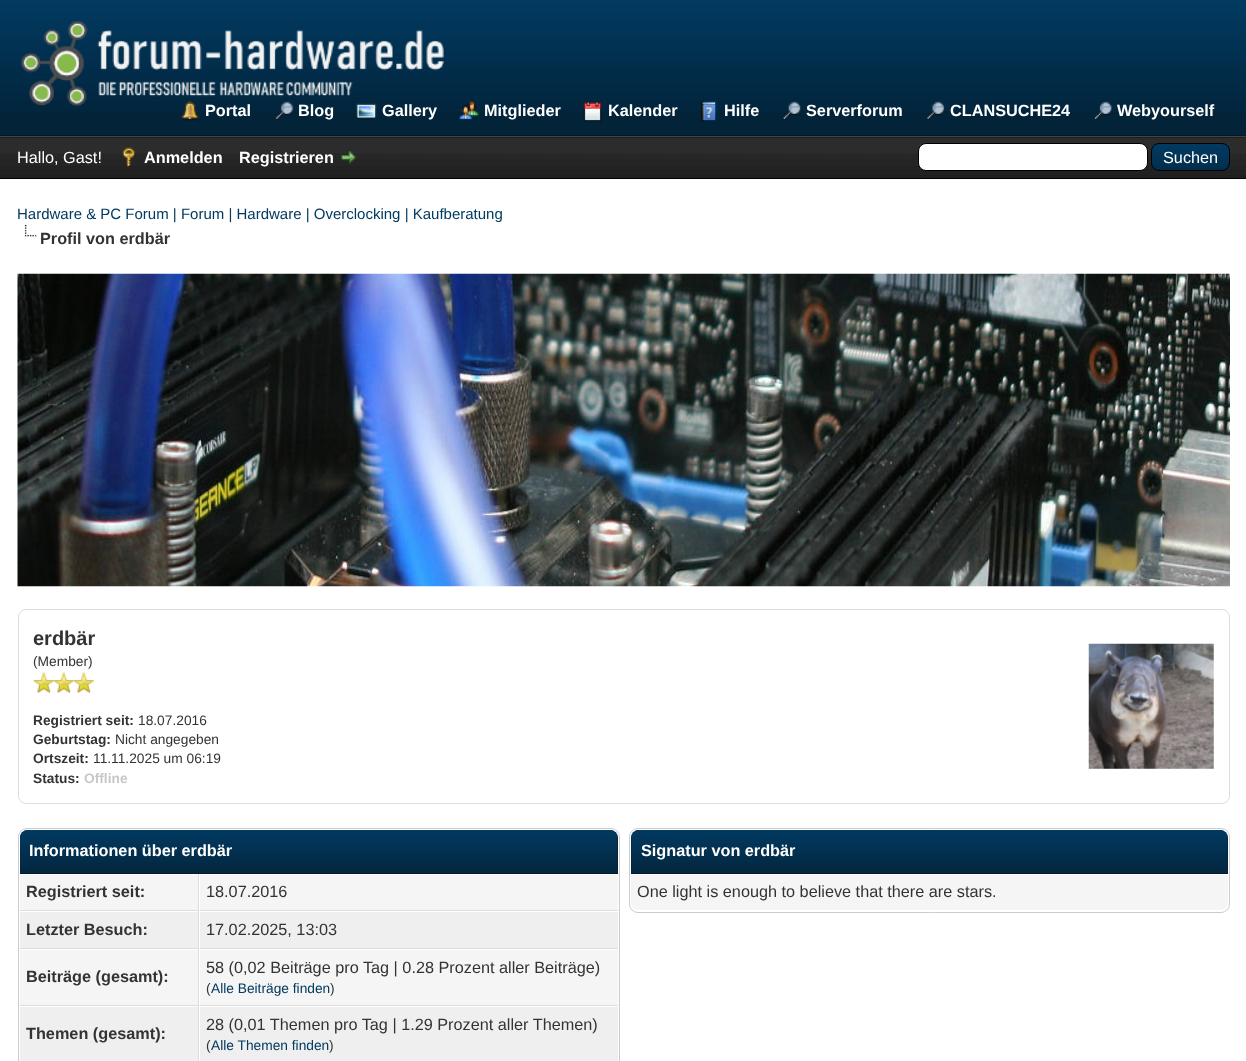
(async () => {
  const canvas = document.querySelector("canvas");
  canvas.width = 1246;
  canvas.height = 1061;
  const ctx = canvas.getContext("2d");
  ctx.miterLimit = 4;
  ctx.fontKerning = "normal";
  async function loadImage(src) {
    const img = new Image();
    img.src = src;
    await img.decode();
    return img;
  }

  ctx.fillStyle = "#ffffff";
  ctx.fillRect(0, 0, 1246, 1061);
  ctx.fillStyle = "#022338";
  ctx.fillRect(0, 112, 1246, 23);
  ctx.drawImage(await loadImage("img/1.png"), 0, 0, 1246, 112);
  ctx.fillStyle = "#011929";
  ctx.fillRect(0, 135, 1246, 1);
  ctx.drawImage(await loadImage("img/2.png"), 21, 20, 423, 87);
  ctx.drawImage(await loadImage("img/3.png"), 181, 101, 18, 20);
  ctx.drawImage(await loadImage("img/4.png"), 275, 101, 19, 19);
  ctx.drawImage(await loadImage("img/5.png"), 356, 103, 21, 17);
  ctx.drawImage(await loadImage("img/6.png"), 458, 101, 21, 20);
  ctx.drawImage(await loadImage("img/7.png"), 583, 101, 19, 21);
  ctx.drawImage(await loadImage("img/8.png"), 701, 101, 16, 21);
  ctx.drawImage(await loadImage("img/9.png"), 782, 101, 20, 19);
  ctx.drawImage(await loadImage("img/10.png"), 926, 101, 19, 19);
  ctx.drawImage(await loadImage("img/11.png"), 1094, 101, 19, 19);
  ctx.fillStyle = "#0f0f0f";
  ctx.fillRect(0, 137, 1246, 1);
  ctx.drawImage(await loadImage("img/12.png"), 0, 137, 1246, 41);
  ctx.fillStyle = "#444444";
  ctx.fillRect(0, 136, 1246, 1);
  ctx.fillStyle = "#000000";
  ctx.fillRect(0, 178, 1246, 1);
  ctx.drawImage(await loadImage("img/13.png"), 122, 147, 14, 20);
  ctx.drawImage(await loadImage("img/14.png"), 341, 151, 16, 13);
  ctx.fillStyle = "#ffffff";
  ctx.beginPath();
  ctx.roundRect(918.5, 143.5, 229, 27, 7.5);
  ctx.fill();
  ctx.strokeStyle = "#000000";
  ctx.stroke();
  ctx.drawImage(await loadImage("img/15.png"), 1151, 143, 79, 28);
  ctx.beginPath();
  ctx.roundRect(1151.5, 143.5, 78, 27, 7.5);
  ctx.stroke();
  ctx.drawImage(await loadImage("img/16.png"), 24, 225, 13, 12);
  ctx.drawImage(await loadImage("img/17.png"), 17, 273, 1213, 314);
  ctx.beginPath();
  ctx.roundRect(18.5, 609.5, 1211, 194, 7.5);
  ctx.strokeStyle = "#dddddd";
  ctx.stroke();
  ctx.drawImage(await loadImage("img/18.png"), 33, 672, 21, 21);
  ctx.drawImage(await loadImage("img/19.png"), 53, 672, 21, 21);
  ctx.drawImage(await loadImage("img/19.png"), 73, 672, 21, 21);
  ctx.drawImage(await loadImage("img/20.png"), 1088, 643, 126, 126);
  ctx.beginPath();
  ctx.roundRect(18.5, 828.5, 601, 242, 8.5);
  ctx.strokeStyle = "#cccccc";
  ctx.stroke();
  ctx.fillStyle = "#022338";
  ctx.beginPath();
  ctx.roundRect(20, 830, 598, 44, [8, 8, 0, 0]);
  ctx.fill();
  ctx.drawImage(await loadImage("img/21.png"), 20, 830, 598, 43);
  for (const [x, y, w, h, color] of [
    [20, 873, 598, 1, "#011929"],
    [20, 875, 178, 35, "#f5f5f5"],
    [198, 874, 1, 187, "#dddddd"],
    [20, 910, 598, 1, "#dddddd"],
    [200, 875, 418, 35, "#f5f5f5"],
    [199, 910, 1, 1, "#ffffff"],
    [20, 912, 178, 36, "#efefef"],
    [20, 948, 598, 1, "#dddddd"],
    [200, 912, 418, 36, "#efefef"],
    [199, 948, 1, 1, "#ffffff"],
    [20, 950, 178, 55, "#f5f5f5"],
    [20, 1005, 598, 1, "#dddddd"],
    [200, 950, 418, 55, "#f5f5f5"],
    [199, 1005, 1, 1, "#ffffff"],
    [20, 1007, 178, 54, "#efefef"],
    [200, 1007, 418, 54, "#efefef"],
  ]) {
    ctx.fillStyle = color;
    ctx.fillRect(x, y, w, h);
  }
  ctx.beginPath();
  ctx.roundRect(629.5, 828.5, 600, 84, 8.5);
  ctx.stroke();
  ctx.fillStyle = "#022338";
  ctx.beginPath();
  ctx.roundRect(631, 830, 597, 44, [8, 8, 0, 0]);
  ctx.fill();
  ctx.drawImage(await loadImage("img/22.png"), 631, 830, 597, 43);
  ctx.fillStyle = "#011929";
  ctx.fillRect(631, 873, 597, 1);
  ctx.fillStyle = "#f5f5f5";
  ctx.beginPath();
  ctx.roundRect(631, 874, 597, 36, [0, 0, 8, 8]);
  ctx.fill();
  ctx.fillStyle = "#ffffff";
  ctx.fillRect(631, 874, 597, 1);
  ctx.font = "bold 16.25px Liberation Sans";
  for (const [text, x, y] of [
    ["Portal", 205, 116],
    ["Blog", 298, 116],
    ["Gallery", 382, 116],
    ["Mitglieder", 484, 116],
    ["Kalender", 608, 116],
    ["Hilfe", 724, 116],
    ["Serverforum", 806, 116],
    ["CLANSUCHE24", 950, 116],
    ["Webyourself", 1117, 116],
  ]) {
    ctx.fillText(text, x, y);
  }
  ctx.font = "16.25px Liberation Sans";
  ctx.fillText("Hallo, Gast!", 17, 163);
  ctx.font = "bold 16.25px Liberation Sans";
  ctx.fillText("Anmelden", 144, 163);
  ctx.fillText("Registrieren", 239, 163);
  ctx.font = "16.25px Liberation Sans";
  ctx.fillText("Suchen", 1163, 163);
  ctx.font = "15px Liberation Sans";
  ctx.fillStyle = "#023a61";
  ctx.fillText("Hardware & PC Forum | Forum | Hardware | Overclocking | Kaufberatung", 17, 219);
  ctx.font = "bold 16.25px Liberation Sans";
  ctx.fillStyle = "#333333";
  ctx.fillText("Profil von erdbär", 40, 244);
  ctx.font = "bold 20px Liberation Sans";
  ctx.fillText("erdbär", 33, 645);
  ctx.font = "13.75px Liberation Sans";
  ctx.fillText("(Member)", 33, 666);
  ctx.font = "bold 13.75px Liberation Sans";
  ctx.fillText("Registriert seit:", 33, 725);
  ctx.font = "13.75px Liberation Sans";
  ctx.fillText("18.07.2016", 138, 725);
  ctx.font = "bold 13.75px Liberation Sans";
  ctx.fillText("Geburtstag:", 33, 744);
  ctx.font = "13.75px Liberation Sans";
  ctx.fillText("Nicht angegeben", 115, 744);
  ctx.font = "bold 13.75px Liberation Sans";
  ctx.fillText("Ortszeit:", 33, 763);
  ctx.font = "13.75px Liberation Sans";
  ctx.fillText("11.11.2025 um 06:19", 93, 763);
  ctx.font = "bold 13.75px Liberation Sans";
  ctx.fillText("Status:", 33, 783);
  ctx.fillStyle = "#c7c7c7";
  ctx.fillText("Offline", 84, 783);
  ctx.font = "bold 16.25px Liberation Sans";
  ctx.fillStyle = "#ffffff";
  ctx.fillText("Informationen über erdbär", 29, 856);
  ctx.fillStyle = "#333333";
  ctx.fillText("Registriert seit:", 26, 897);
  ctx.font = "16.25px Liberation Sans";
  ctx.fillText("18.07.2016", 206, 897);
  ctx.font = "bold 16.25px Liberation Sans";
  ctx.fillText("Letzter Besuch:", 26, 935);
  ctx.font = "16.25px Liberation Sans";
  ctx.fillText("17.02.2025, 13:03", 206, 935);
  ctx.font = "bold 16.25px Liberation Sans";
  ctx.fillText("Beiträge (gesamt):", 26, 982);
  ctx.font = "16.25px Liberation Sans";
  ctx.fillText("58 (0,02 Beiträge pro Tag | 0.28 Prozent aller Beiträge)", 206, 973);
  ctx.font = "13.75px Liberation Sans";
  ctx.fillText("(", 206, 993);
  ctx.fillStyle = "#023a61";
  ctx.fillText("Alle Beiträge finden", 211, 993);
  ctx.fillStyle = "#333333";
  ctx.fillText(")", 330, 993);
  ctx.font = "bold 16.25px Liberation Sans";
  ctx.fillText("Themen (gesamt):", 26, 1039);
  ctx.font = "16.25px Liberation Sans";
  ctx.fillText("28 (0,01 Themen pro Tag | 1.29 Prozent aller Themen)", 206, 1030);
  ctx.font = "13.75px Liberation Sans";
  ctx.fillText("(", 206, 1050);
  ctx.fillStyle = "#023a61";
  ctx.fillText("Alle Themen finden", 211, 1050);
  ctx.fillStyle = "#333333";
  ctx.fillText(")", 329, 1050);
  ctx.font = "bold 16.25px Liberation Sans";
  ctx.fillStyle = "#ffffff";
  ctx.fillText("Signatur von erdbär", 641, 856);
  ctx.font = "16.25px Liberation Sans";
  ctx.fillStyle = "#333333";
  ctx.fillText("One light is enough to believe that there are stars.", 637, 897);
})();
